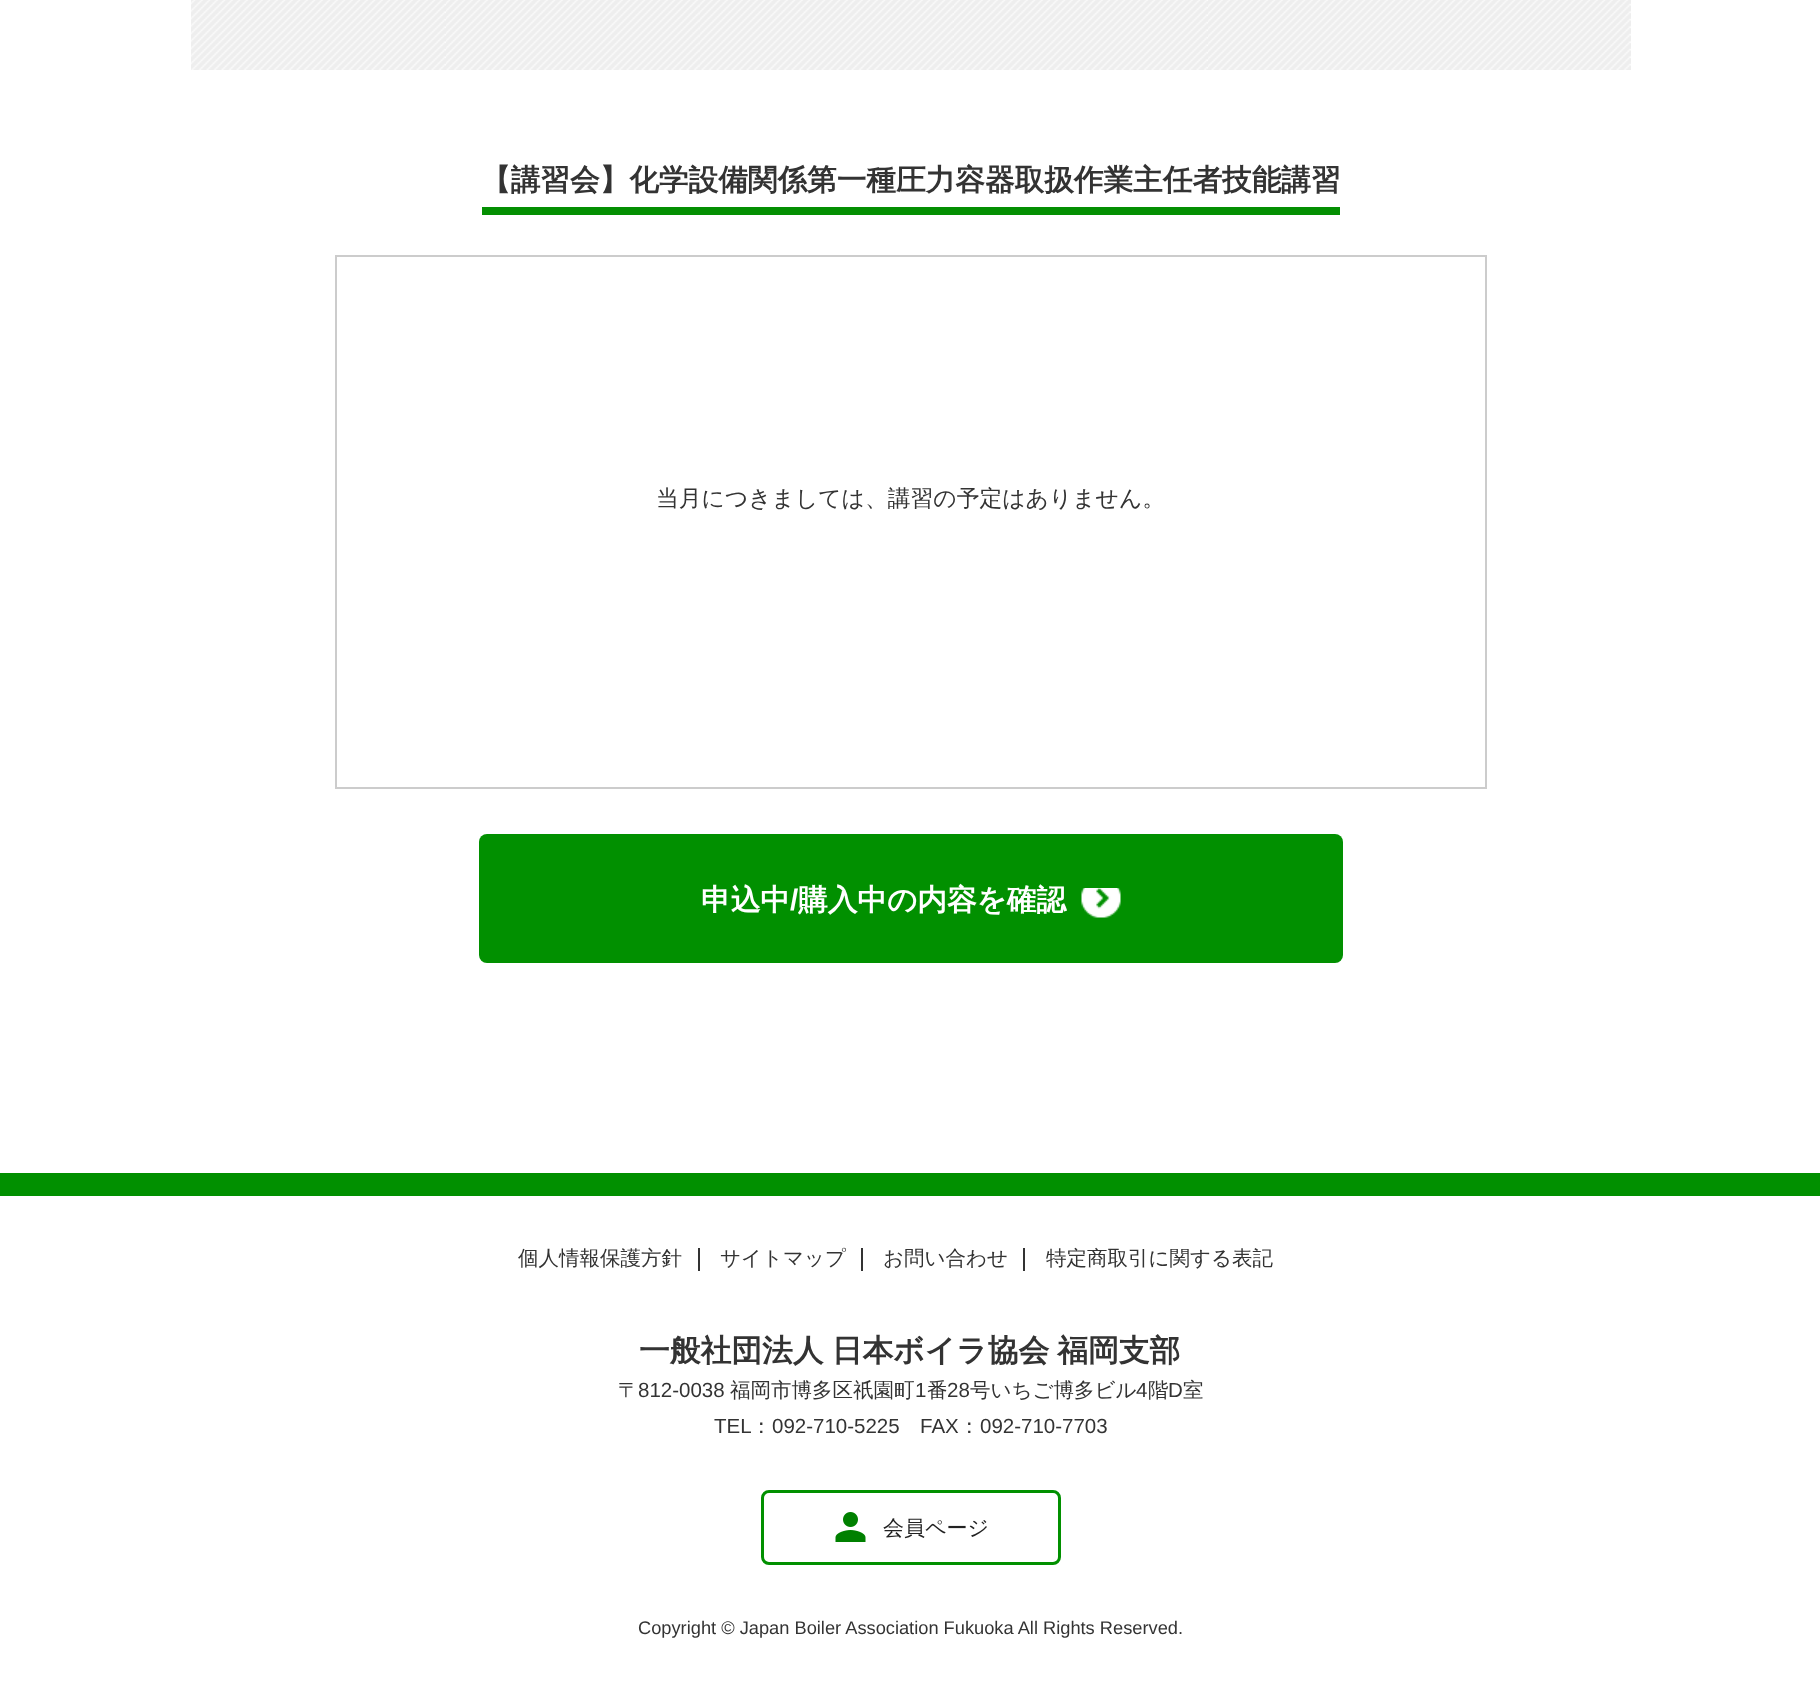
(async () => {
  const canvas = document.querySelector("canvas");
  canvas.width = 1820;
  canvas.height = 1690;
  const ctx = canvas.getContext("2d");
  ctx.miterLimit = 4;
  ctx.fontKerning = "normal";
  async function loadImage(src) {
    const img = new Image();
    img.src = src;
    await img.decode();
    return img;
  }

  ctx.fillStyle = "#ffffff";
  ctx.fillRect(0, 0, 1820, 1690);
  ctx.drawImage(await loadImage("img/1.png"), 191, 0, 1440, 70);
  ctx.fillStyle = "#048f02";
  ctx.fillRect(482, 207, 858, 8);
  ctx.strokeStyle = "#cccccc";
  ctx.lineWidth = 2;
  ctx.strokeRect(336, 256, 1150, 532);
  ctx.fillStyle = "#019000";
  ctx.beginPath();
  ctx.roundRect(479, 834, 864, 129, 8);
  ctx.fill();
  ctx.drawImage(await loadImage("img/2.png"), 1081, 888, 40, 30);
  for (const [x, y, w, h, color] of [
    [0, 1173, 1820, 23, "#019000"],
    [698, 1248, 2, 23, "#333333"],
    [861, 1248, 2, 23, "#333333"],
    [1023, 1248, 2, 23, "#333333"],
  ]) {
    ctx.fillStyle = color;
    ctx.fillRect(x, y, w, h);
  }
  ctx.beginPath();
  ctx.roundRect(762.5, 1491.5, 297, 72, 6.5);
  ctx.strokeStyle = "#019000";
  ctx.lineWidth = 3;
  ctx.stroke();
  ctx.drawImage(await loadImage("img/3.png"), 835, 1512, 31, 30);
  ctx.font = "bold 29.65px WenQuanYi Zen Hei";
  ctx.fillText("【講習会】化学設備関係第一種圧力容器取扱作業主任者技能講習", 481, 190);
  ctx.font = "500 22.8px WenQuanYi Zen Hei";
  ctx.fillText("当月につきましては、講習の予定はありません。", 656, 506);
  ctx.font = "bold 29.65px WenQuanYi Zen Hei";
  ctx.fillStyle = "#ffffff";
  ctx.fillText("申込中", 701, 910);
  ctx.font = "bold 29.65px Liberation Sans";
  ctx.fillText("/", 790, 910);
  ctx.font = "bold 29.65px WenQuanYi Zen Hei";
  ctx.fillText("購入中の内容を確認", 798, 910);
  ctx.font = "500 20.5px WenQuanYi Zen Hei";
  ctx.fillStyle = "#333333";
  for (const [text, x, y] of [
    ["個人情報保護方針", 518, 1265],
    ["サイトマップ", 720, 1265],
    ["お問い合わせ", 883, 1265],
    ["特定商取引に関する表記", 1046, 1265],
  ]) {
    ctx.fillText(text, x, y);
  }
  ctx.wordSpacing = "-1px";
  ctx.font = "bold 30.75px WenQuanYi Zen Hei";
  ctx.fillText("一般社団法人 日本ボイラ協会 福岡支部", 639, 1361);
  ctx.wordSpacing = "0px";
  ctx.font = "500 20.5px WenQuanYi Zen Hei";
  ctx.fillText("〒", 618, 1397);
  ctx.font = "20.5px Liberation Sans";
  ctx.fillText("812-0038", 638, 1397);
  ctx.font = "500 20.5px WenQuanYi Zen Hei";
  ctx.fillText("福岡市博多区祇園町", 730, 1397);
  ctx.font = "20.5px Liberation Sans";
  ctx.fillText("1", 915, 1397);
  ctx.font = "500 20.5px WenQuanYi Zen Hei";
  ctx.fillText("番", 927, 1397);
  ctx.font = "20.5px Liberation Sans";
  ctx.fillText("28", 947, 1397);
  ctx.font = "500 20.5px WenQuanYi Zen Hei";
  ctx.fillText("号いちご博多ビル", 970, 1397);
  ctx.font = "20.5px Liberation Sans";
  ctx.fillText("4", 1136, 1397);
  ctx.font = "500 20.5px WenQuanYi Zen Hei";
  ctx.fillText("階", 1148, 1397);
  ctx.font = "20.5px Liberation Sans";
  ctx.fillText("D", 1168, 1397);
  ctx.font = "500 20.5px WenQuanYi Zen Hei";
  ctx.fillText("室", 1183, 1397);
  ctx.font = "20.5px Liberation Sans";
  ctx.fillText("TEL", 714, 1433);
  ctx.font = "500 20.5px WenQuanYi Zen Hei";
  ctx.fillText("：", 751, 1433);
  ctx.font = "20.5px Liberation Sans";
  ctx.fillText("092-710-5225", 772, 1433);
  ctx.fillText("FAX", 920, 1433);
  ctx.font = "500 20.5px WenQuanYi Zen Hei";
  ctx.fillText("：", 959, 1433);
  ctx.font = "20.5px Liberation Sans";
  ctx.fillText("092-710-7703", 980, 1433);
  ctx.font = "500 21px WenQuanYi Zen Hei";
  ctx.fillStyle = "#222222";
  ctx.fillText("会員ページ", 883, 1535);
  ctx.font = "18.25px Liberation Sans";
  ctx.fillStyle = "#333333";
  ctx.fillText("Copyright © Japan Boiler Association Fukuoka All Rights Reserved.", 638, 1634);
})();
